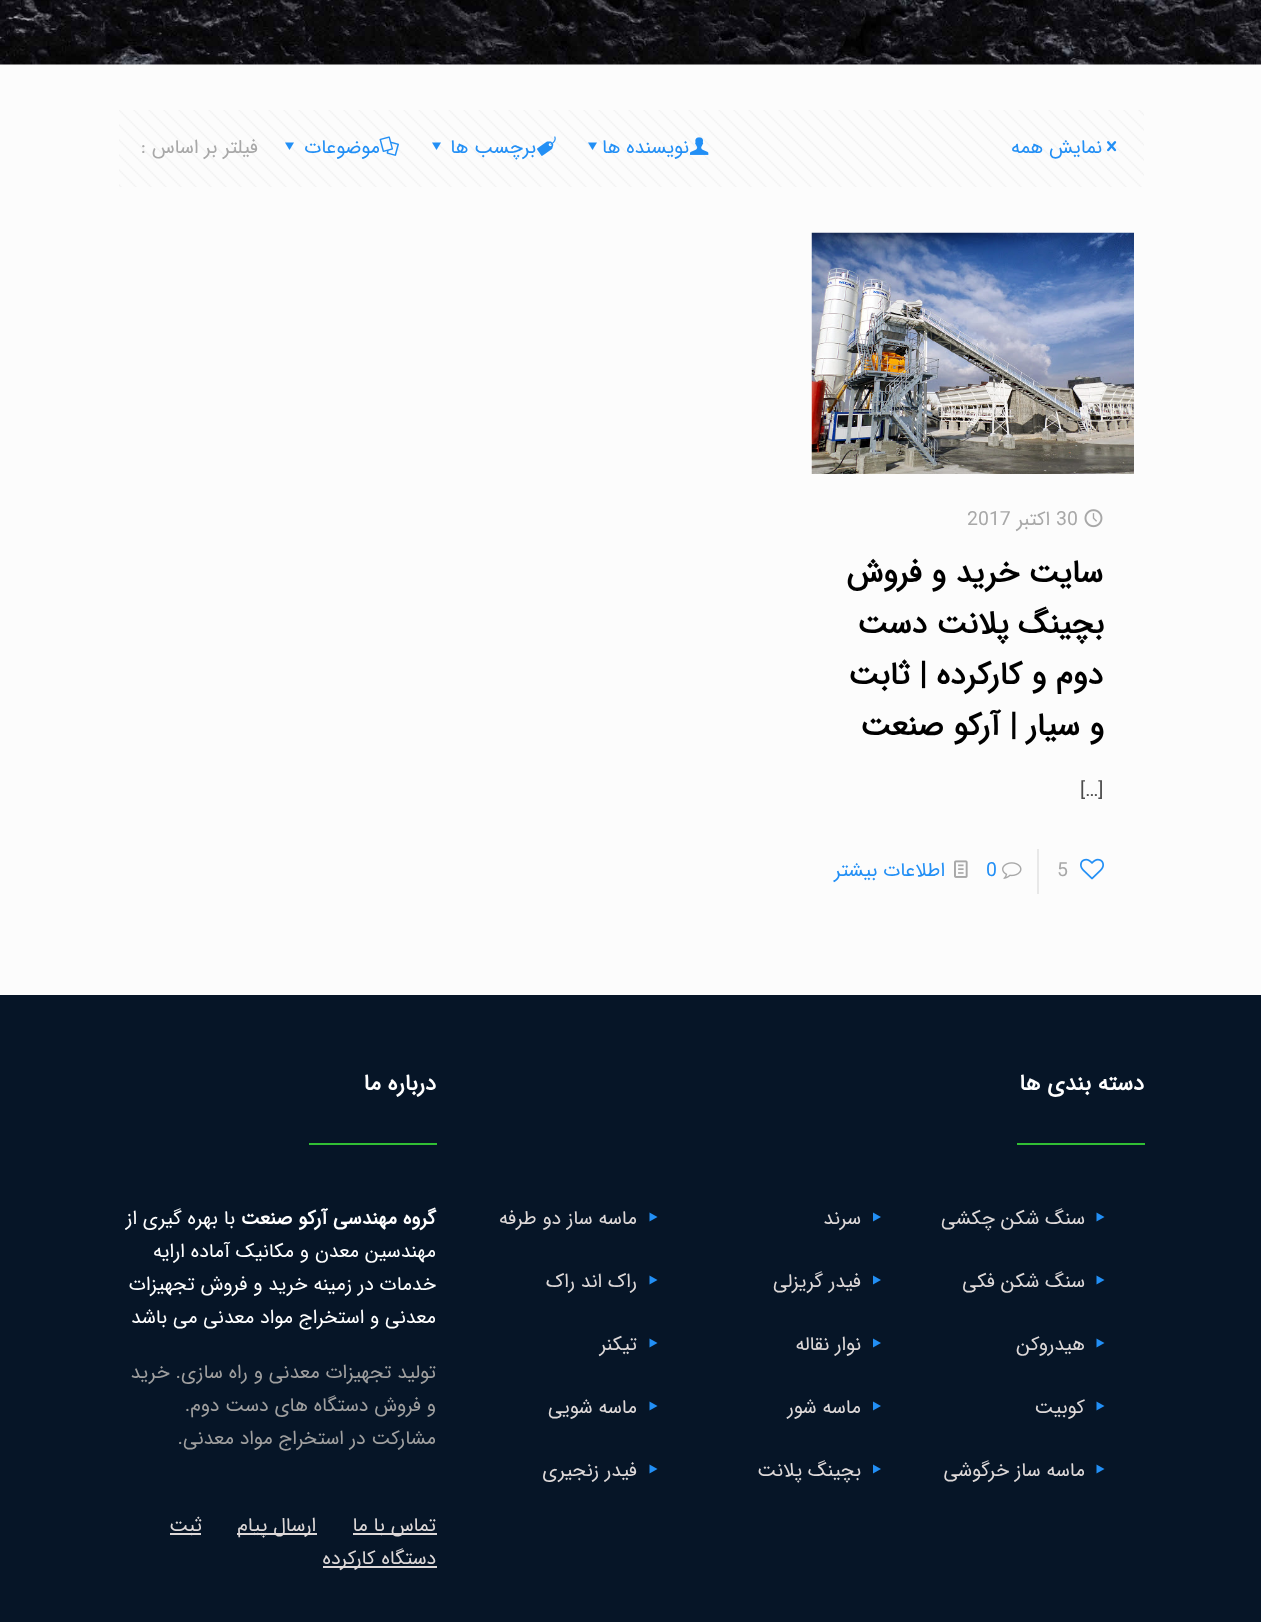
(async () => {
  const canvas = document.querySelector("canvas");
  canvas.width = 1261;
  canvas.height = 1622;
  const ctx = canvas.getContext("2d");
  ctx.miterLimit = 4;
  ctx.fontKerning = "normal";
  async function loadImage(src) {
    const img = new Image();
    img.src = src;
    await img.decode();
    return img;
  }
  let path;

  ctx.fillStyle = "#fcfcfc";
  ctx.fillRect(0, 0, 1261, 1622);
  ctx.fillStyle = "#f7f7f7";
  ctx.fillRect(0, 64, 1261, 1);
  ctx.drawImage(await loadImage("img/1.png"), 0, 0, 1261, 65);
  ctx.drawImage(await loadImage("img/2.png"), 119, 110, 1025, 77);
  ctx.drawImage(await loadImage("img/3.png"), 1107, 141, 10, 11);
  ctx.drawImage(await loadImage("img/4.png"), 690, 137, 19, 18);
  ctx.fillStyle = "#228ff5";
  path = new Path2D("M597 142.5L592.5 150L588 142.5Z");
  ctx.fill(path);
  ctx.drawImage(await loadImage("img/5.png"), 537, 136, 19, 20);
  path = new Path2D("M441 142.5L436.5 150L432 142.5Z");
  ctx.fill(path);
  ctx.drawImage(await loadImage("img/6.png"), 379, 136, 20, 20);
  path = new Path2D("M294 142.5L289.5 150L285 142.5Z");
  ctx.fill(path);
  ctx.drawImage(await loadImage("img/7.png"), 811, 232, 323, 242);
  ctx.drawImage(await loadImage("img/8.png"), 1084, 509, 19, 19);
  ctx.drawImage(await loadImage("img/9.png"), 1080, 858, 24, 22);
  ctx.fillStyle = "#e8e8e8";
  ctx.fillRect(1037, 849, 2, 45);
  ctx.drawImage(await loadImage("img/10.png"), 1002, 862, 20, 17);
  ctx.drawImage(await loadImage("img/11.png"), 954, 860, 14, 18);
  ctx.fillStyle = "#061527";
  ctx.fillRect(0, 995, 1261, 627);
  ctx.fillStyle = "#31bf34";
  ctx.fillRect(1017, 1143, 128, 2);
  ctx.fillStyle = "#228ff5";
  path = new Path2D("M1096.5 1212.5L1104.5 1217L1096.5 1221.5Z");
  ctx.fill(path);
  path = new Path2D("M1096.5 1275.5L1104.5 1280L1096.5 1284.5Z");
  ctx.fill(path);
  path = new Path2D("M1096.5 1338.5L1104.5 1343L1096.5 1347.5Z");
  ctx.fill(path);
  path = new Path2D("M1096.5 1401.5L1104.5 1406L1096.5 1410.5Z");
  ctx.fill(path);
  path = new Path2D("M1096.5 1464.5L1104.5 1469L1096.5 1473.5Z");
  ctx.fill(path);
  path = new Path2D("M873 1212.5L881 1217L873 1221.5Z");
  ctx.fill(path);
  path = new Path2D("M873 1275.5L881 1280L873 1284.5Z");
  ctx.fill(path);
  path = new Path2D("M873 1338.5L881 1343L873 1347.5Z");
  ctx.fill(path);
  path = new Path2D("M873 1401.5L881 1406L873 1410.5Z");
  ctx.fill(path);
  path = new Path2D("M873 1464.5L881 1469L873 1473.5Z");
  ctx.fill(path);
  path = new Path2D("M649.5 1212.5L657.5 1217L649.5 1221.5Z");
  ctx.fill(path);
  path = new Path2D("M649.5 1275.5L657.5 1280L649.5 1284.5Z");
  ctx.fill(path);
  path = new Path2D("M649.5 1338.5L657.5 1343L649.5 1347.5Z");
  ctx.fill(path);
  path = new Path2D("M649.5 1401.5L657.5 1406L649.5 1410.5Z");
  ctx.fill(path);
  path = new Path2D("M649.5 1464.5L657.5 1469L649.5 1473.5Z");
  ctx.fill(path);
  for (const [x, y, w, h, color] of [
    [309, 1143, 128, 2, "#31bf34"],
    [353, 1533, 84, 2, "#ddd8d8"],
    [237, 1533, 80, 2, "#ddd8d8"],
    [170, 1533, 31, 2, "#ddd8d8"],
    [323, 1566, 114, 2, "#ddd8d8"],
  ]) {
    ctx.fillStyle = color;
    ctx.fillRect(x, y, w, h);
  }
  ctx.direction = "rtl";
  ctx.font = "19.5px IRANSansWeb";
  ctx.fillStyle = "#228ff5";
  for (const [text, x, y] of [
    ["نمایش همه", 1102, 153],
    ["نویسنده ها", 689, 153],
    ["برچسب ها", 536, 153],
    ["موضوعات", 380, 153],
  ]) {
    ctx.fillText(text, x, y);
  }
  ctx.fillStyle = "#a8a8a8";
  ctx.fillText("فیلتر بر اساس :", 258, 153);
  ctx.direction = "ltr";
  ctx.fillText("30", 1056, 525);
  ctx.direction = "rtl";
  ctx.fillText("اکتبر", 1050, 525);
  ctx.direction = "ltr";
  ctx.fillText("2017", 967, 525);
  ctx.direction = "rtl";
  ctx.font = "bold 31.5px IRANSansWeb";
  ctx.fillStyle = "#000000";
  for (const [text, x, y] of [
    ["سایت خرید و فروش", 1103, 582],
    ["بچینگ پلانت دست", 1104, 633],
    ["دوم و کارکرده | ثابت", 1103, 684],
    ["و سیار | آرکو صنعت", 1104, 735],
  ]) {
    ctx.fillText(text, x, y);
  }
  ctx.direction = "ltr";
  ctx.font = "19.5px IRANSansWeb";
  ctx.fillStyle = "#4c4c4c";
  ctx.fillText("[…]", 1080, 796);
  ctx.fillStyle = "#a8a8a8";
  ctx.fillText("5", 1057, 876);
  ctx.fillStyle = "#228ff5";
  ctx.fillText("0", 986, 876);
  ctx.direction = "rtl";
  ctx.fillText("اطلاعات بیشتر", 945, 876);
  ctx.font = "bold 22.5px IRANSansWeb";
  ctx.fillStyle = "#ffffff";
  ctx.fillText("دسته بندی ها", 1144, 1090);
  ctx.font = "19.5px IRANSansWeb";
  ctx.fillStyle = "#ddd8d8";
  for (const [text, x, y] of [
    ["سنگ شکن چکشی", 1085, 1224],
    ["سنگ شکن فکی", 1085, 1287],
    ["هیدروکن", 1085, 1350],
    ["کوبیت", 1085, 1413],
    ["ماسه ساز خرگوشی", 1085, 1476],
    ["سرند", 861, 1224],
    ["فیدر گریزلی", 861, 1287],
    ["نوار نقاله", 861, 1350],
    ["ماسه شور", 861, 1413],
    ["بچینگ پلانت", 861, 1476],
    ["ماسه ساز دو طرفه", 637, 1224],
    ["راک اند راک", 637, 1287],
    ["تیکنر", 637, 1350],
    ["ماسه شویی", 637, 1413],
    ["فیدر زنجیری", 637, 1476],
  ]) {
    ctx.fillText(text, x, y);
  }
  ctx.font = "bold 22.5px IRANSansWeb";
  ctx.fillStyle = "#ffffff";
  ctx.fillText("درباره ما", 436, 1090);
  ctx.font = "bold 19.5px IRANSansWeb";
  ctx.fillText("گروه مهندسی آرکو صنعت", 436, 1224);
  ctx.font = "19.5px IRANSansWeb";
  for (const [text, x, y] of [
    ["با بهره گیری از", 235, 1224],
    ["مهندسین معدن و مکانیک آماده ارایه", 436, 1257],
    ["خدمات در زمینه خرید و فروش تجهیزات", 436, 1290],
    ["معدنی و استخراج مواد معدنی می باشد", 436, 1323],
  ]) {
    ctx.fillText(text, x, y);
  }
  ctx.fillStyle = "#9f9f9f";
  for (const [text, x, y] of [
    ["تولید تجهیزات معدنی و راه سازی. خرید", 436, 1378],
    ["و فروش دستگاه های دست دوم.", 436, 1411],
    ["مشارکت در استخراج مواد معدنی.", 436, 1444],
  ]) {
    ctx.fillText(text, x, y);
  }
  ctx.fillStyle = "#ddd8d8";
  for (const [text, x, y] of [
    ["تماس با ما", 436, 1531],
    ["ارسال پیام", 316, 1531],
    ["ثبت", 202, 1531],
    ["دستگاه کارکرده", 436, 1564],
  ]) {
    ctx.fillText(text, x, y);
  }
})();
